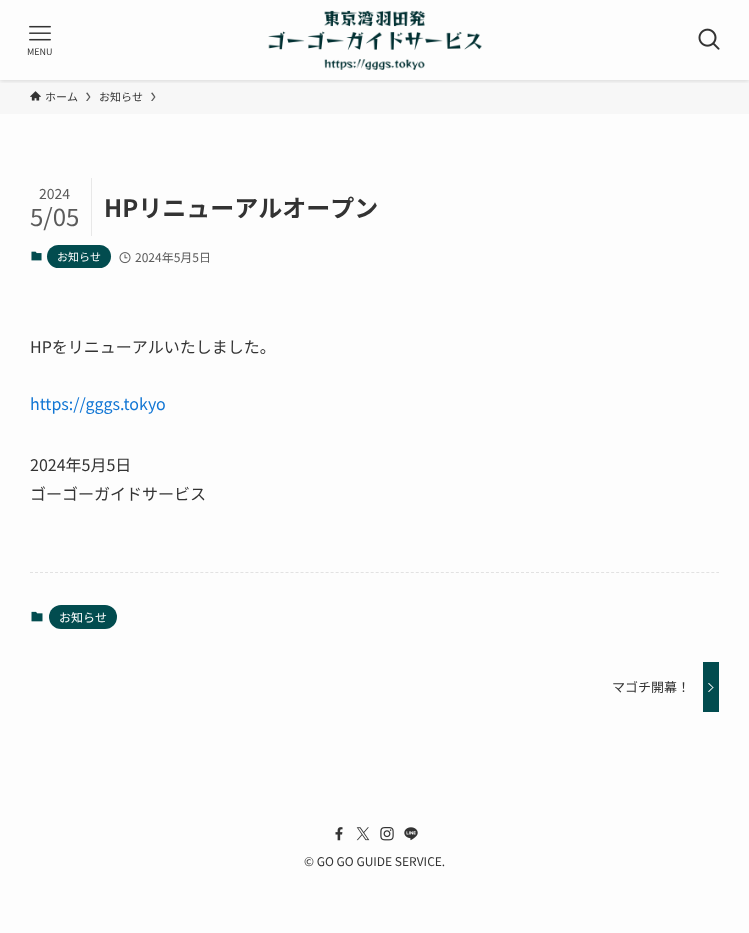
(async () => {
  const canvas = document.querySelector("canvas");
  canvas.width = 749;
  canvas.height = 933;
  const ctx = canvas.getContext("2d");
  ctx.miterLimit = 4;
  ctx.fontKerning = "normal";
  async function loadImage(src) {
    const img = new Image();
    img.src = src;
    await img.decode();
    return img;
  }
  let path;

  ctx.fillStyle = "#fdfdfd";
  ctx.fillRect(0, 0, 749, 933);
  ctx.fillStyle = "#f7f7f7";
  ctx.fillRect(0, 80, 749, 34);
  ctx.save();
  ctx.beginPath();
  ctx.rect(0, 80, 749, 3);
  ctx.clip();
  ctx.fillStyle = "rgba(0, 0, 0, 0.12)";
  ctx.filter = "blur(2px)";
  ctx.beginPath();
  ctx.rect(0, 1, 749, 80);
  ctx.fill();
  ctx.filter = "none";
  ctx.restore();
  ctx.drawImage(await loadImage("img/1.png"), 268, 10, 214, 60);
  ctx.drawImage(await loadImage("img/2.png"), 698, 28, 22, 22);
  ctx.drawImage(await loadImage("img/3.png"), 29, 25, 22, 16);
  ctx.drawImage(await loadImage("img/4.png"), 30, 91, 11, 10);
  ctx.fillStyle = "#5a5a5a";
  path = new Path2D("M87.5 92.5L86 93L89 97L86 101H87.5L90.5 97Z");
  ctx.fill(path);
  path = new Path2D("M152.5 92.5L151 93L154 97L151 101H152.5L155.5 97Z");
  ctx.fill(path);
  ctx.fillStyle = "#e8e8e8";
  ctx.fillRect(91, 178, 1, 58);
  ctx.drawImage(await loadImage("img/5.png"), 31, 251, 11, 10);
  ctx.fillStyle = "#024c4f";
  ctx.beginPath();
  ctx.roundRect(47, 245, 64, 23, 11.5);
  ctx.fill();
  ctx.drawImage(await loadImage("img/6.png"), 119, 252, 12, 12);
  path = new Path2D("M30 572.5H719");
  ctx.strokeStyle = "#e2e2e2";
  ctx.setLineDash([3, 2.01]);
  ctx.stroke(path);
  ctx.drawImage(await loadImage("img/7.png"), 31, 611, 12, 11);
  ctx.beginPath();
  ctx.roundRect(49, 605, 68, 24, 12);
  ctx.fill();
  ctx.fillRect(703, 662, 16, 50);
  ctx.fillStyle = "#ffffff";
  path = new Path2D("M708 683.5L709 683L713.5 687.5L713 688Z");
  ctx.fill(path);
  path = new Path2D("M708 691.5L713 687L713.5 687.5L709 692Z");
  ctx.fill(path);
  ctx.drawImage(await loadImage("img/8.png"), 335, 827, 8, 14);
  ctx.drawImage(await loadImage("img/9.png"), 356, 827, 14, 14);
  ctx.drawImage(await loadImage("img/10.png"), 380, 827, 14, 14);
  ctx.drawImage(await loadImage("img/11.png"), 404, 827, 14, 14);
  ctx.font = "9px Noto Sans JP";
  ctx.fillStyle = "#333333";
  ctx.fillText("MENU", 27, 55);
  ctx.font = "11px Noto Sans JP";
  ctx.fillText("ホーム", 45, 101);
  ctx.fillText("お知らせ", 99, 101);
  ctx.font = "14px Noto Sans JP";
  ctx.fillStyle = "#5b5b5b";
  ctx.fillText("2024", 39, 199);
  ctx.font = "24px Noto Sans JP";
  ctx.fillText("5/05", 30, 226);
  ctx.font = "bold 24px Noto Sans JP";
  ctx.fillStyle = "#333333";
  ctx.fillText("HPリニューアルオープン", 104, 217);
  ctx.font = "11px Noto Sans JP";
  ctx.fillStyle = "#ffffff";
  ctx.fillText("お知らせ", 57, 261);
  ctx.font = "12px Noto Sans JP";
  ctx.fillStyle = "#5b5b5b";
  ctx.fillText("2024年5月5日", 135, 262);
  ctx.font = "16px Noto Sans JP";
  ctx.fillStyle = "#333333";
  ctx.fillText("HPをリニューアルいたしました。", 30, 353);
  ctx.fillStyle = "#1176d4";
  ctx.fillText("https://gggs.tokyo", 30, 410);
  ctx.fillStyle = "#333333";
  ctx.fillText("2024年5月5日", 30, 471);
  ctx.fillText("ゴーゴーガイドサービス", 30, 500);
  ctx.font = "12px Noto Sans JP";
  ctx.fillStyle = "#ffffff";
  ctx.fillText("お知らせ", 59, 622);
  ctx.font = "13px Noto Sans JP";
  ctx.fillStyle = "#333333";
  ctx.fillText("マゴチ開幕！", 612, 692);
  ctx.font = "12px Noto Sans JP";
  ctx.fillText("© GO GO GUIDE SERVICE.", 304, 866);
})();
